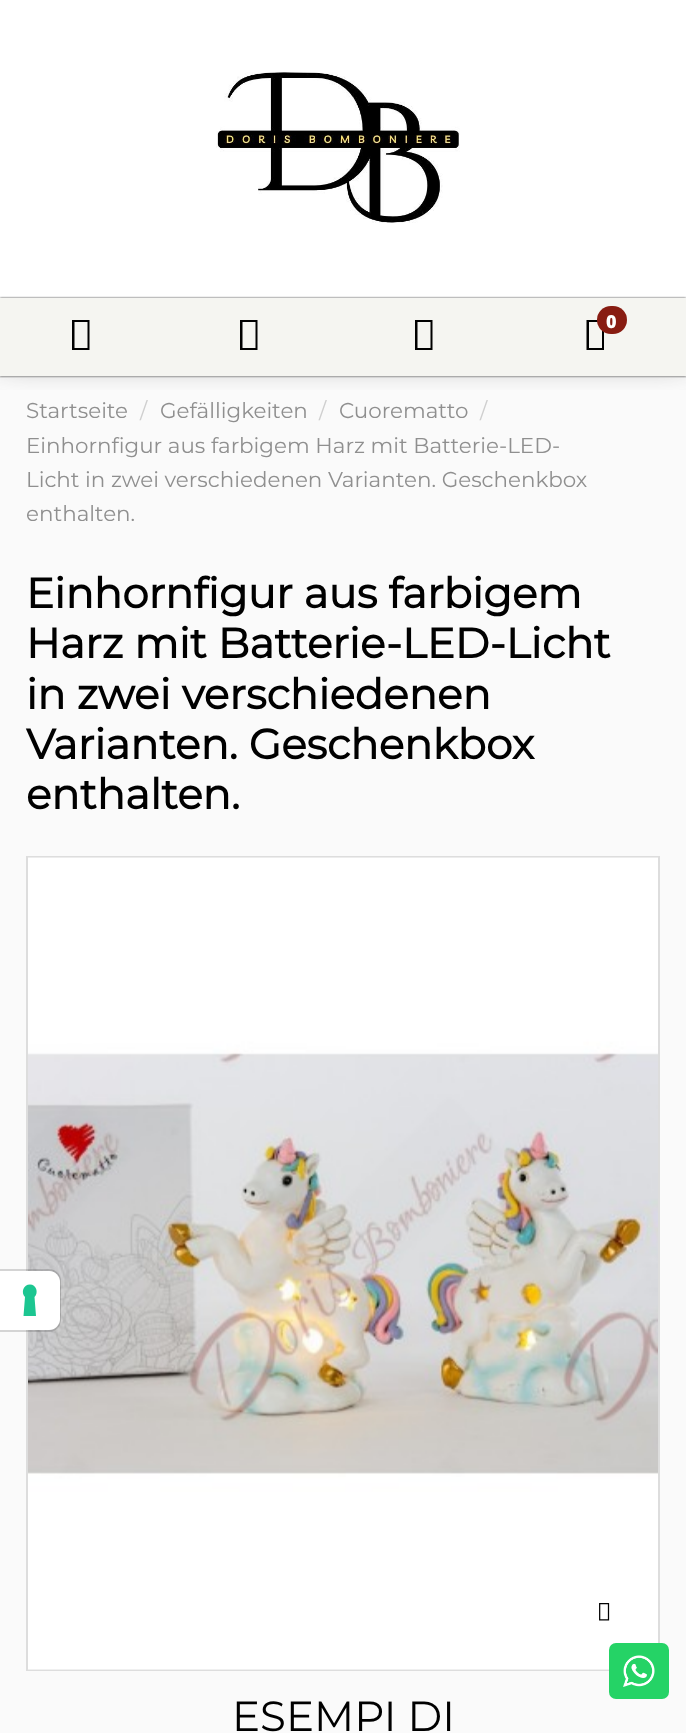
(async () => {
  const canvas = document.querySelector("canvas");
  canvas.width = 686;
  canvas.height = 1733;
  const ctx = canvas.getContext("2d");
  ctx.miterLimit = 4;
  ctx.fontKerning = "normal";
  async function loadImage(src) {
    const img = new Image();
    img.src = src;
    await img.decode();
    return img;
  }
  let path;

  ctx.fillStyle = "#ffffff";
  ctx.fillRect(0, 0, 686, 1733);
  ctx.fillStyle = "#fafafa";
  ctx.fillRect(0, 378, 686, 1355);
  ctx.save();
  ctx.beginPath();
  ctx.rect(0, 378, 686, 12);
  ctx.clip();
  ctx.fillStyle = "#3c3c3c";
  ctx.filter = "blur(17.5px)";
  ctx.beginPath();
  ctx.rect(0, -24, 686, 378);
  ctx.fill();
  ctx.filter = "none";
  ctx.restore();
  ctx.fillStyle = "#e3e3e3";
  ctx.fillRect(0, 376, 686, 2);
  ctx.drawImage(await loadImage("img/1.png"), 216, 72, 244, 151);
  ctx.fillStyle = "#3c3c3c";
  ctx.filter = "blur(1px)";
  ctx.beginPath();
  ctx.rect(0, 298, 686, 78);
  ctx.fill();
  ctx.filter = "none";
  ctx.fillStyle = "#f5f5f1";
  ctx.fillRect(0, 298, 686, 78);
  ctx.fillStyle = "#000000";
  path = new Path2D("M72 350V320H89.5V350ZM74.5 348H87.5V322H74.5Z");
  ctx.fill(path);
  path = new Path2D("M240 350V320H257.5V350ZM242.5 348H255.5V322H242.5Z");
  ctx.fill(path);
  path = new Path2D("M415 350V320H432.5V350ZM417.5 348H430.5V322H417.5Z");
  ctx.fill(path);
  path = new Path2D("M586.5 350V320H604V350ZM589 348H602V322H589Z");
  ctx.fill(path);
  ctx.fillStyle = "#881c12";
  ctx.beginPath();
  ctx.roundRect(597, 306, 30, 28, 14);
  ctx.fill();
  ctx.strokeStyle = "#dddddd";
  ctx.lineWidth = 2;
  ctx.strokeRect(27, 857, 632, 813);
  ctx.drawImage(await loadImage("img/2.png"), 28, 857, 630, 813);
  ctx.drawImage(await loadImage("img/3.png"), 599, 1603, 11, 18);
  path = new Path2D("M-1 1270H49C55 1270 60 1275 60 1281V1320C60 1326 55 1331 49 1331H-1Z");
  ctx.strokeStyle = "rgba(0, 0, 0, 0.15)";
  ctx.stroke(path);
  ctx.fillStyle = "#ffffff";
  ctx.beginPath();
  ctx.roundRect(0, 1271, 60, 59, [0, 11, 11, 0]);
  ctx.fill();
  ctx.fillStyle = "#1cc691";
  path = new Path2D("M30 1284.5C36 1284.5 39 1292.5 34.5 1297L36 1316H23.5L25 1297C20.5 1292.5 23.5 1284.5 30 1284.5Z");
  ctx.fill(path, "evenodd");
  ctx.fillStyle = "#25d366";
  ctx.beginPath();
  ctx.roundRect(609, 1643, 60, 56, 7);
  ctx.fill();
  ctx.drawImage(await loadImage("img/4.png"), 623, 1655, 32, 32);
  ctx.font = "900 18px Noto Sans";
  ctx.fillStyle = "#ffffff";
  ctx.fillText("0", 606, 328);
  ctx.font = "21.45px Montserrat";
  ctx.fillStyle = "#8f8f8f";
  ctx.fillText("Startseite", 26, 418);
  ctx.fillStyle = "#cfcfcf";
  ctx.fillText("/", 140, 418);
  ctx.fillStyle = "#8f8f8f";
  ctx.fillText("Gefälligkeiten", 160, 418);
  ctx.fillStyle = "#cfcfcf";
  ctx.fillText("/", 319, 418);
  ctx.fillStyle = "#8f8f8f";
  ctx.fillText("Cuorematto", 339, 418);
  ctx.fillStyle = "#cfcfcf";
  ctx.fillText("/", 480, 418);
  ctx.fillStyle = "#8f8f8f";
  for (const [text, x, y] of [
    ["Einhornfigur aus farbigem Harz mit Batterie-LED-", 26, 453],
    ["Licht in zwei verschiedenen Varianten. Geschenkbox", 26, 487],
    ["enthalten.", 26, 521],
  ]) {
    ctx.fillText(text, x, y);
  }
  ctx.font = "bold 42px Montserrat";
  ctx.fillStyle = "#000000";
  for (const [text, x, y] of [
    ["Einhornfigur aus farbigem", 26, 608],
    ["Harz mit Batterie-LED-Licht", 26, 658],
    ["in zwei verschiedenen", 26, 709],
    ["Varianten. Geschenkbox", 26, 759],
    ["enthalten.", 26, 809],
  ]) {
    ctx.fillText(text, x, y);
  }
  ctx.font = "42px Montserrat";
  ctx.fillText("ESEMPI DI", 232, 1731);
})();
